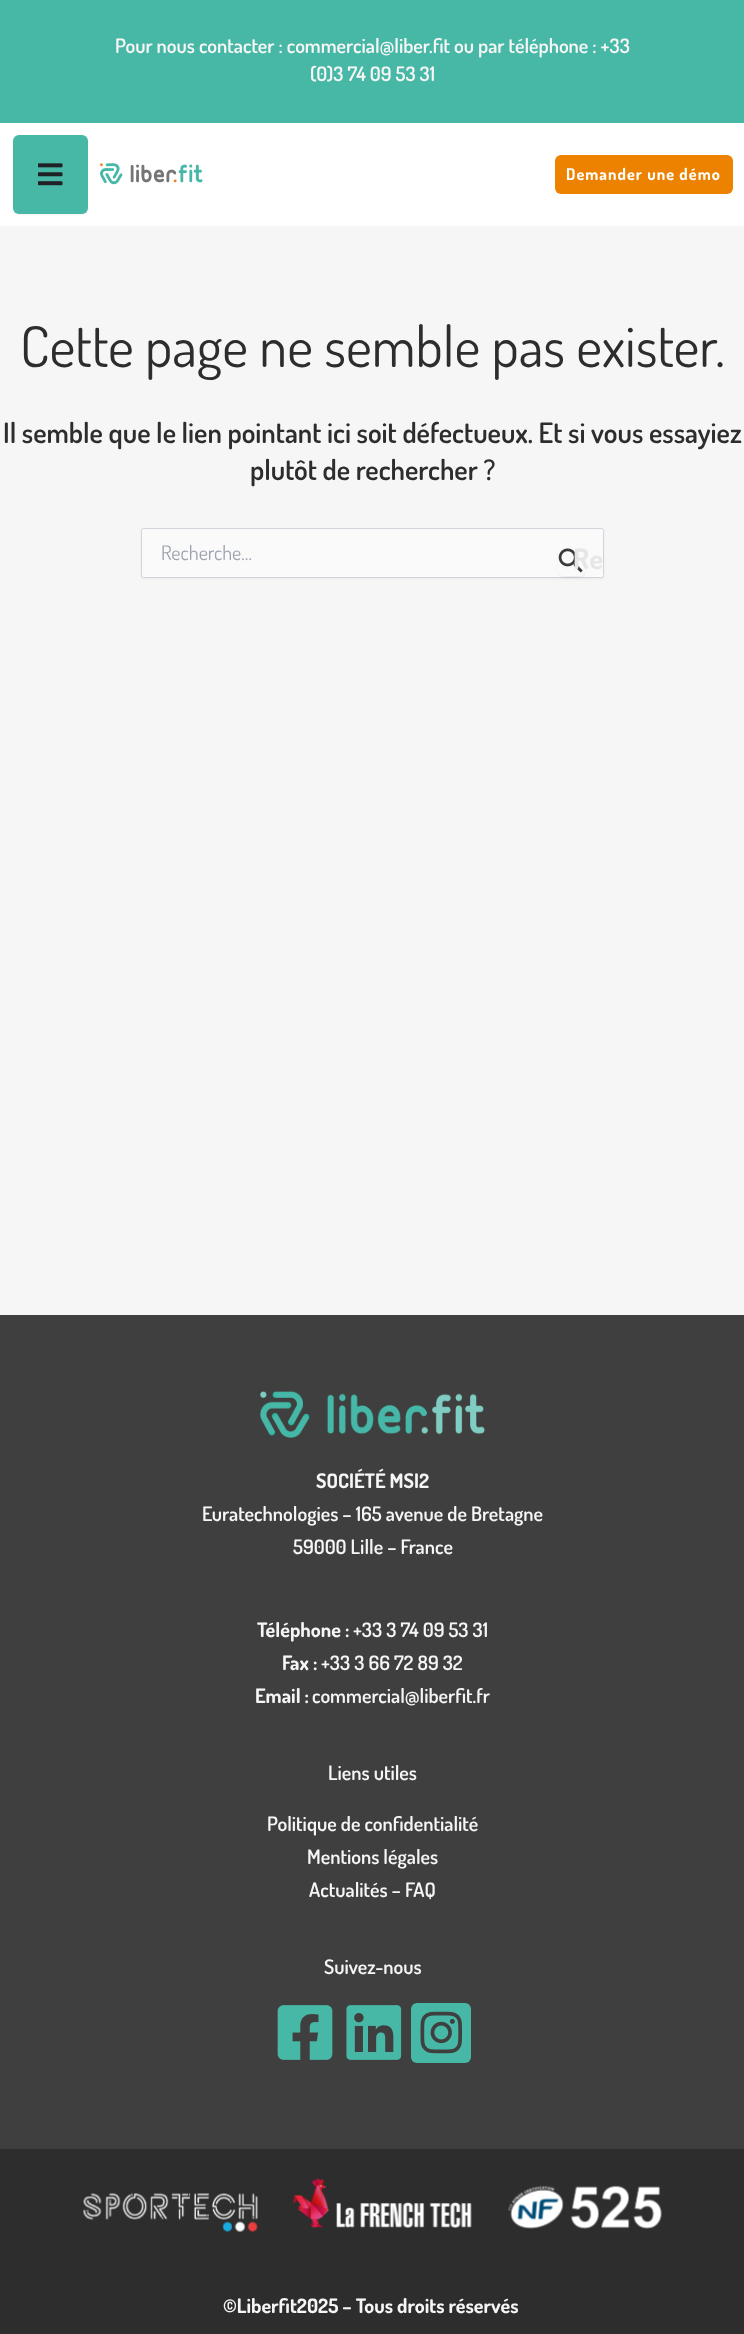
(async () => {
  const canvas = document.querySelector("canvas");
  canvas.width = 744;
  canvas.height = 2334;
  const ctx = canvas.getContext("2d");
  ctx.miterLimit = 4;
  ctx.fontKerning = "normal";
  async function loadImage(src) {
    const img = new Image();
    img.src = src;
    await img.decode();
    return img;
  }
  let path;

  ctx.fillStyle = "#f6f6f6";
  ctx.fillRect(0, 0, 744, 2334);
  ctx.fillStyle = "#47b7a6";
  ctx.fillRect(0, 0, 744, 123);
  ctx.fillStyle = "#ffffff";
  ctx.fillRect(0, 123, 744, 103);
  ctx.fillStyle = "rgba(0, 0, 0, 0.05)";
  ctx.filter = "blur(1px)";
  ctx.beginPath();
  ctx.roundRect(13, 136, 75, 79, 6);
  ctx.fill();
  ctx.filter = "none";
  ctx.fillStyle = "#47b7a6";
  ctx.beginPath();
  ctx.roundRect(13, 135, 75, 79, 6);
  ctx.fill();
  ctx.drawImage(await loadImage("img/1.png"), 38, 163, 25, 23);
  ctx.drawImage(await loadImage("img/2.png"), 100, 163, 103, 22);
  ctx.fillStyle = "#ed8200";
  ctx.beginPath();
  ctx.roundRect(555, 155, 178, 39, 6);
  ctx.fill();
  ctx.fillStyle = "rgba(0, 0, 0, 0.05)";
  ctx.filter = "blur(1px)";
  ctx.beginPath();
  ctx.roundRect(141, 529, 463, 50, 2.5);
  ctx.fill();
  ctx.filter = "none";
  ctx.fillStyle = "#fafafa";
  ctx.beginPath();
  ctx.roundRect(141.5, 528.5, 462, 49, 2);
  ctx.fill();
  ctx.strokeStyle = "#d1d5db";
  ctx.stroke();
  ctx.save();
  path = new Path2D("M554 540H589V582H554ZM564 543H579C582.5 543 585 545.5 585 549V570C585 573.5 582.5 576 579 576H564C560.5 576 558 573.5 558 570V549C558 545.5 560.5 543 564 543Z");
  ctx.clip(path, "evenodd");
  ctx.fillStyle = "rgba(0, 0, 0, 0.05)";
  ctx.filter = "blur(1px)";
  ctx.beginPath();
  ctx.roundRect(558, 544, 27, 34, 6);
  ctx.fill();
  ctx.filter = "none";
  ctx.restore();
  ctx.drawImage(await loadImage("img/3.png"), 558, 548, 25, 25);
  ctx.fillStyle = "#3f3f3f";
  ctx.fillRect(0, 1315, 744, 834);
  ctx.drawImage(await loadImage("img/4.png"), 260, 1391, 225, 47);
  ctx.drawImage(await loadImage("img/5.png"), 277, 2005, 56, 55);
  ctx.drawImage(await loadImage("img/6.png"), 346, 2005, 56, 55);
  ctx.fillStyle = "#47b7a6";
  ctx.beginPath();
  ctx.roundRect(411, 2003, 60, 60, 6);
  ctx.fill();
  ctx.drawImage(await loadImage("img/7.png"), 420, 2011, 43, 43);
  ctx.fillStyle = "#2d2d2d";
  ctx.fillRect(0, 2149, 744, 185);
  ctx.drawImage(await loadImage("img/8.png"), 83, 2193, 175, 39);
  ctx.drawImage(await loadImage("img/9.png"), 292, 2178, 180, 50);
  ctx.drawImage(await loadImage("img/10.png"), 508, 2185, 154, 44);
  ctx.font = "600 20px Dosis";
  ctx.fillStyle = "#f6f6f6";
  ctx.fillText("Pour nous contacter : commercial@liber.fit ou par téléphone : +33", 115, 53);
  ctx.fillText("(0)3 74 09 53 31", 310, 81);
  ctx.letterSpacing = "1px";
  ctx.font = "bold 16.25px Dosis";
  ctx.fillStyle = "#ffffff";
  ctx.fillText("Demander une démo", 566, 180);
  ctx.letterSpacing = "0px";
  ctx.font = "56.25px Dosis";
  ctx.fillStyle = "#2d2d2d";
  ctx.fillText("Cette page ne semble pas exister.", 20, 367);
  ctx.font = "600 28.1px Dosis";
  ctx.fillText("Il semble que le lien pointant ici soit défectueux. Et si vous essayiez", 3, 443);
  ctx.fillText("plutôt de rechercher ?", 250, 480);
  ctx.font = "20px Dosis";
  ctx.fillStyle = "#9ca3af";
  ctx.fillText("Recherche…", 161, 560);
  ctx.letterSpacing = "1px";
  ctx.font = "bold 28px Dosis";
  ctx.fillStyle = "#e6e6e6";
  ctx.fillText("Re", 573, 569);
  ctx.letterSpacing = "0px";
  ctx.font = "bold 20px Dosis";
  ctx.fillStyle = "#f6f6f6";
  ctx.fillText("SOCIÉTÉ MSI2", 316, 1488);
  ctx.font = "600 20px Dosis";
  ctx.fillText("Euratechnologies – 165 avenue de Bretagne", 202, 1521);
  ctx.fillText("59000 Lille – France", 293, 1554);
  ctx.font = "bold 20px Dosis";
  ctx.fillText("Téléphone :", 257, 1637);
  ctx.font = "600 20px Dosis";
  ctx.fillText("+33 3 74 09 53 31", 353, 1637);
  ctx.font = "bold 20px Dosis";
  ctx.fillText("Fax :", 282, 1670);
  ctx.font = "600 20px Dosis";
  ctx.fillText("+33 3 66 72 89 32", 321, 1670);
  ctx.font = "bold 20px Dosis";
  ctx.fillText("Email :", 255, 1703);
  ctx.font = "600 20px Dosis";
  for (const [text, x, y] of [
    ["commercial@liberfit.fr", 312, 1703],
    ["Liens utiles", 328, 1780],
    ["Politique de confidentialité", 267, 1831],
    ["Mentions légales", 307, 1864],
    ["Actualités – FAQ", 309, 1897],
    ["Suivez-nous", 324, 1974],
  ]) {
    ctx.fillText(text, x, y);
  }
  ctx.font = "bold 20px Dosis";
  ctx.fillText("©Liberfit2025 – Tous droits réservés", 223, 2313);
})();
